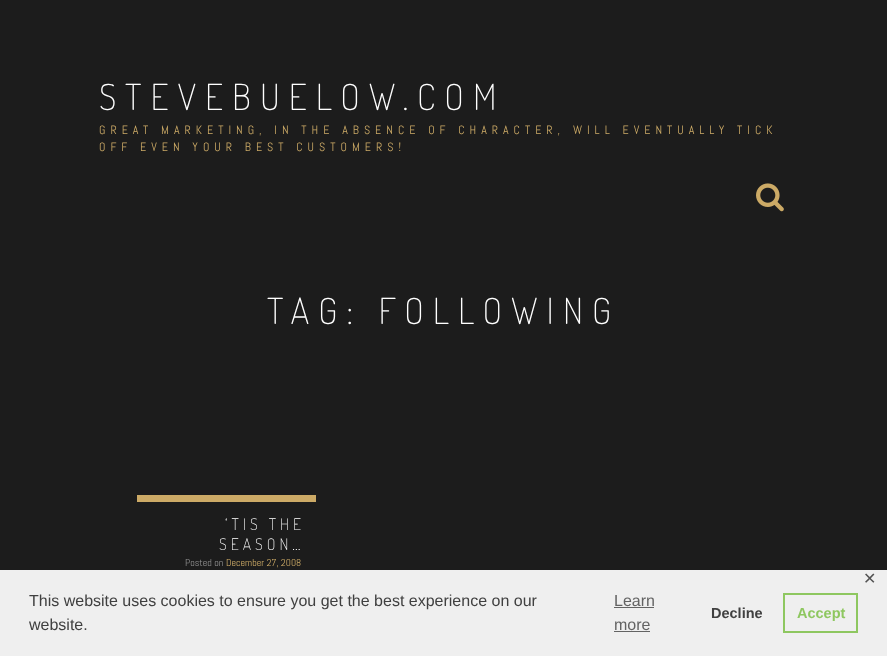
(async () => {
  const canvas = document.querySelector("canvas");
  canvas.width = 887;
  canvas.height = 656;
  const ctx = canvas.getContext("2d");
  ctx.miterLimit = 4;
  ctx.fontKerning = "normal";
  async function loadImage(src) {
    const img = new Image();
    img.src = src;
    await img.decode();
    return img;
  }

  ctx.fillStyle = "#1c1c1c";
  ctx.fillRect(0, 0, 887, 656);
  ctx.drawImage(await loadImage("img/1.png"), 756, 183, 28, 29);
  for (const [x, y, w, h, color] of [
    [137, 495, 179, 7, "#ccaa66"],
    [0, 570, 887, 86, "#efefef"],
    [614, 607, 40, 1, "#636363"],
    [614, 631, 36, 1, "#636363"],
  ]) {
    ctx.fillStyle = color;
    ctx.fillRect(x, y, w, h);
  }
  ctx.strokeStyle = "#8ec760";
  ctx.lineWidth = 2;
  ctx.strokeRect(784, 594, 73, 38);
  ctx.letterSpacing = "9px";
  ctx.font = "200 36px Dosis";
  ctx.fillStyle = "#ffffff";
  ctx.fillText("STEVEBUELOW.COM", 99, 110);
  ctx.letterSpacing = "5px";
  ctx.font = "12px Abel";
  ctx.fillStyle = "#ccaa66";
  ctx.fillText("GREAT MARKETING, IN THE ABSENCE OF CHARACTER, WILL EVENTUALLY TICK", 99, 134);
  ctx.fillText("OFF EVEN YOUR BEST CUSTOMERS!", 99, 151);
  ctx.letterSpacing = "9px";
  ctx.font = "200 36px Dosis";
  ctx.fillStyle = "#ffffff";
  ctx.fillText("TAG: FOLLOWING", 267, 324);
  ctx.letterSpacing = "4px";
  ctx.font = "200 16px Dosis";
  ctx.fillText("‘TIS THE", 225, 530);
  ctx.fillText("SEASON…", 219, 550);
  ctx.letterSpacing = "0px";
  ctx.font = "10px Abel";
  ctx.fillStyle = "#909090";
  ctx.fillText("Posted on", 185, 566);
  ctx.fillStyle = "#ccaa66";
  ctx.fillText("December 27, 2008", 226, 566);
  ctx.font = "16px DejaVu Sans";
  ctx.fillStyle = "#525252";
  ctx.fillText("✕", 863, 584);
  ctx.font = "16px Liberation Sans";
  ctx.fillStyle = "#404040";
  ctx.fillText("This website uses cookies to ensure you get the best experience on our", 29, 606);
  ctx.fillText("website.", 29, 630);
  ctx.fillStyle = "#636363";
  ctx.fillText("Learn", 614, 606);
  ctx.fillText("more", 614, 630);
  ctx.font = "bold 14.5px Liberation Sans";
  ctx.fillStyle = "#404040";
  ctx.fillText("Decline", 711, 618);
  ctx.fillStyle = "#8ec760";
  ctx.fillText("Accept", 797, 618);
})();
